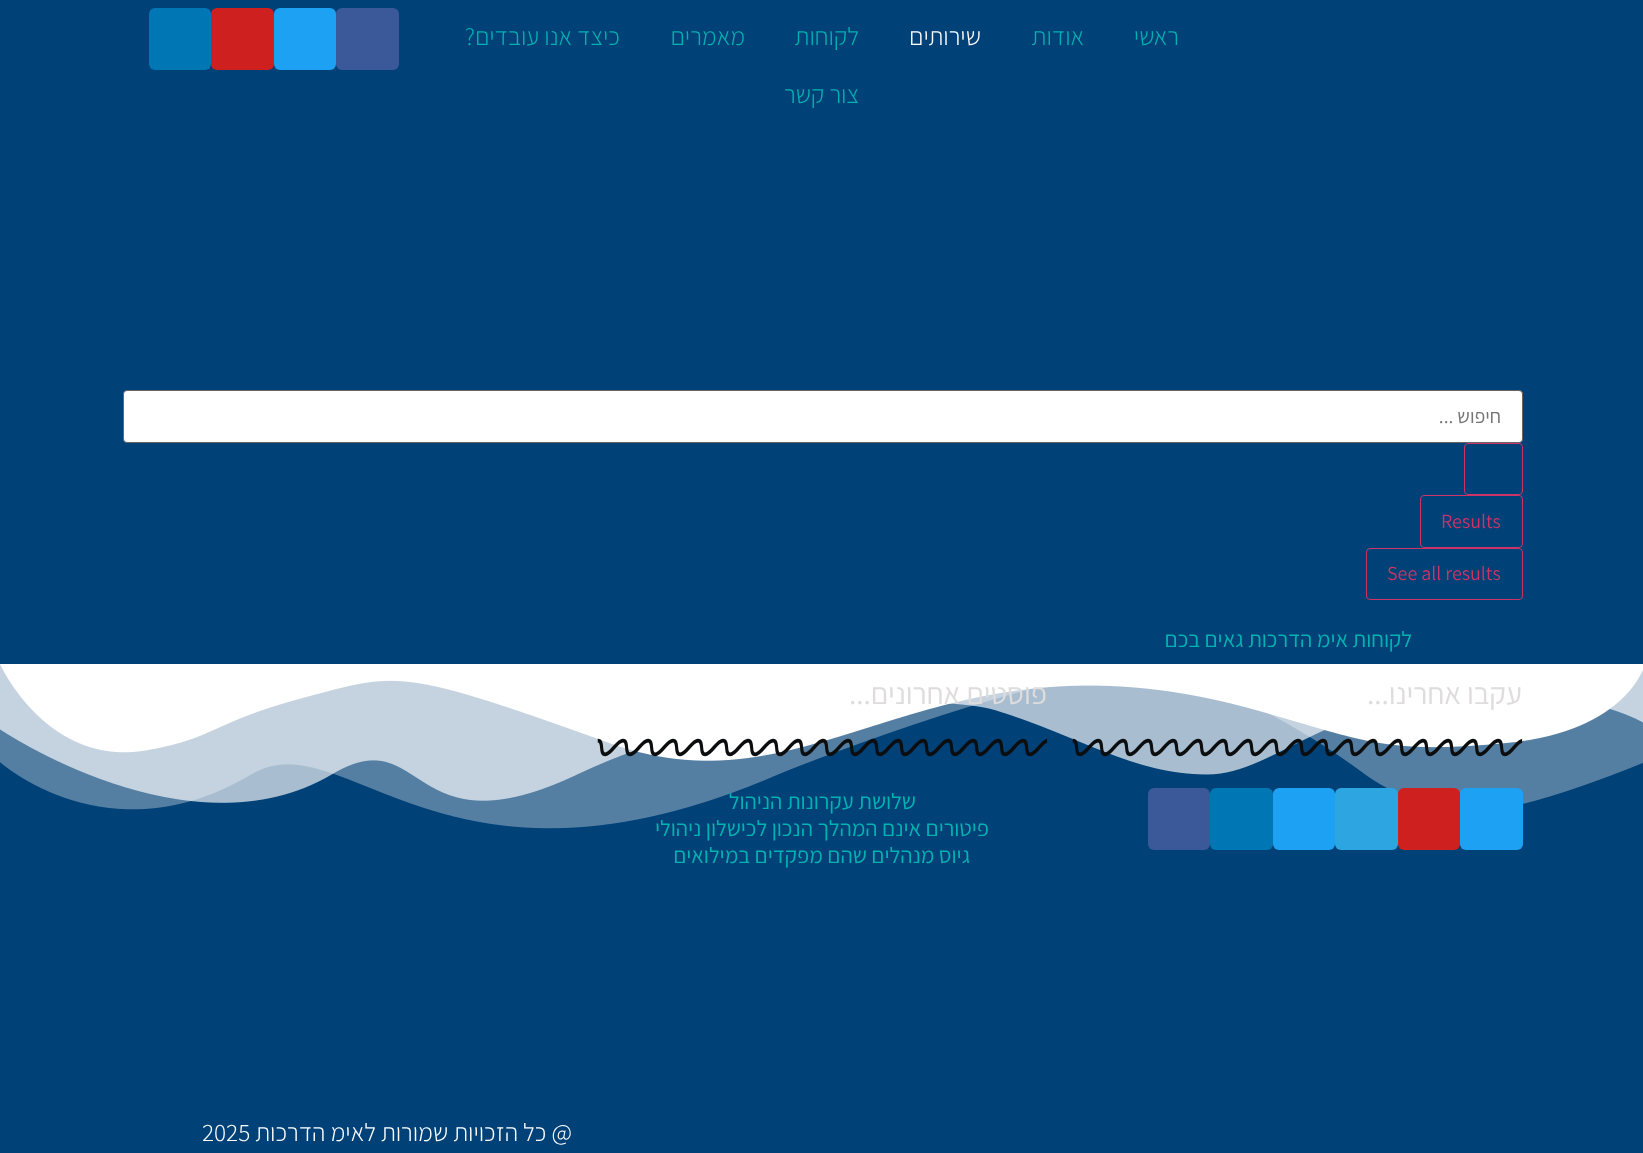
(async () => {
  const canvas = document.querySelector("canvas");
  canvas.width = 1643;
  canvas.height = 1153;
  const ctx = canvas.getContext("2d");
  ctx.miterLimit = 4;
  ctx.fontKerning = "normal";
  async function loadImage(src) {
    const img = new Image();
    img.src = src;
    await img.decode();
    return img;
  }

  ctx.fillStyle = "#004177";
  ctx.fillRect(0, 0, 1643, 1153);
  ctx.fillStyle = "#3b5998";
  ctx.beginPath();
  ctx.roundRect(336, 8, 63, 62, 6);
  ctx.fill();
  ctx.fillStyle = "#1da1f2";
  ctx.beginPath();
  ctx.roundRect(274, 8, 62, 62, 6);
  ctx.fill();
  ctx.fillStyle = "#cd201f";
  ctx.beginPath();
  ctx.roundRect(211, 8, 63, 62, 6);
  ctx.fill();
  ctx.fillStyle = "#0077b5";
  ctx.beginPath();
  ctx.roundRect(149, 8, 62, 62, 6);
  ctx.fill();
  ctx.fillStyle = "#ffffff";
  ctx.beginPath();
  ctx.roundRect(123.5, 390.5, 1399, 52, 3.5);
  ctx.fill();
  ctx.strokeStyle = "#666666";
  ctx.stroke();
  ctx.beginPath();
  ctx.roundRect(1464.5, 443.5, 58, 51, 3.5);
  ctx.strokeStyle = "#cc3366";
  ctx.stroke();
  ctx.beginPath();
  ctx.roundRect(1420.5, 495.5, 102, 52, 3.5);
  ctx.stroke();
  ctx.beginPath();
  ctx.roundRect(1366.5, 548.5, 156, 51, 3.5);
  ctx.stroke();
  ctx.drawImage(await loadImage("img/1.png"), 0, 664, 1643, 165);
  ctx.drawImage(await loadImage("img/2.png"), 1072, 738, 451, 19);
  ctx.fillStyle = "#1da1f2";
  ctx.beginPath();
  ctx.roundRect(1460, 788, 63, 62, 6);
  ctx.fill();
  ctx.fillStyle = "#cd201f";
  ctx.beginPath();
  ctx.roundRect(1398, 788, 62, 62, 6);
  ctx.fill();
  ctx.fillStyle = "#2ca5e0";
  ctx.beginPath();
  ctx.roundRect(1335, 788, 63, 62, 6);
  ctx.fill();
  ctx.fillStyle = "#1da1f2";
  ctx.beginPath();
  ctx.roundRect(1273, 788, 62, 62, 6);
  ctx.fill();
  ctx.fillStyle = "#0077b5";
  ctx.beginPath();
  ctx.roundRect(1210, 788, 63, 62, 6);
  ctx.fill();
  ctx.fillStyle = "#3b5998";
  ctx.beginPath();
  ctx.roundRect(1148, 788, 62, 62, 6);
  ctx.fill();
  ctx.drawImage(await loadImage("img/3.png"), 597, 738, 451, 19);
  ctx.direction = "rtl";
  ctx.font = "300 25px Assistant";
  ctx.fillStyle = "#01b2b2";
  ctx.fillText("ראשי", 1179, 45);
  ctx.fillText("אודות", 1084, 45);
  ctx.fillStyle = "#ffffff";
  ctx.fillText("שירותים", 981, 45);
  ctx.fillStyle = "#01b2b2";
  for (const [text, x, y] of [
    ["לקוחות", 859, 45],
    ["מאמרים", 745, 45],
    ["כיצד אנו עובדים?", 620, 45],
    ["צור קשר", 859, 103],
  ]) {
    ctx.fillText(text, x, y);
  }
  ctx.font = "20px Assistant";
  ctx.fillStyle = "#757575";
  ctx.fillText("חיפוש ...", 1501, 423);
  ctx.direction = "ltr";
  ctx.fillStyle = "#cc3366";
  ctx.fillText("Results", 1441, 528);
  ctx.fillText("See all results", 1387, 580);
  ctx.direction = "rtl";
  ctx.font = "22.5px Assistant";
  ctx.fillStyle = "#01b2b2";
  ctx.fillText("לקוחות אימ הדרכות גאים בכם", 1412, 647);
  ctx.font = "30px Assistant";
  ctx.fillStyle = "#dedcdc";
  ctx.fillText("עקבו אחרינו...", 1522, 704);
  ctx.fillText("פוסטים אחרונים...", 1047, 704);
  ctx.font = "22.5px Assistant";
  ctx.fillStyle = "#01b2b2";
  for (const [text, x, y] of [
    ["שלושת עקרונות הניהול", 916, 809],
    ["פיטורים אינם המהלך הנכון לכישלון ניהולי", 989, 836],
    ["גיוס מנהלים שהם מפקדים במילואים", 970, 863],
  ]) {
    ctx.fillText(text, x, y);
  }
  ctx.font = "300 25px Assistant";
  ctx.fillStyle = "#ffffff";
  ctx.fillText("@ כל הזכויות שמורות לאימ הדרכות", 572, 1141);
  ctx.direction = "ltr";
  ctx.fillText("2025", 202, 1141);
})();
